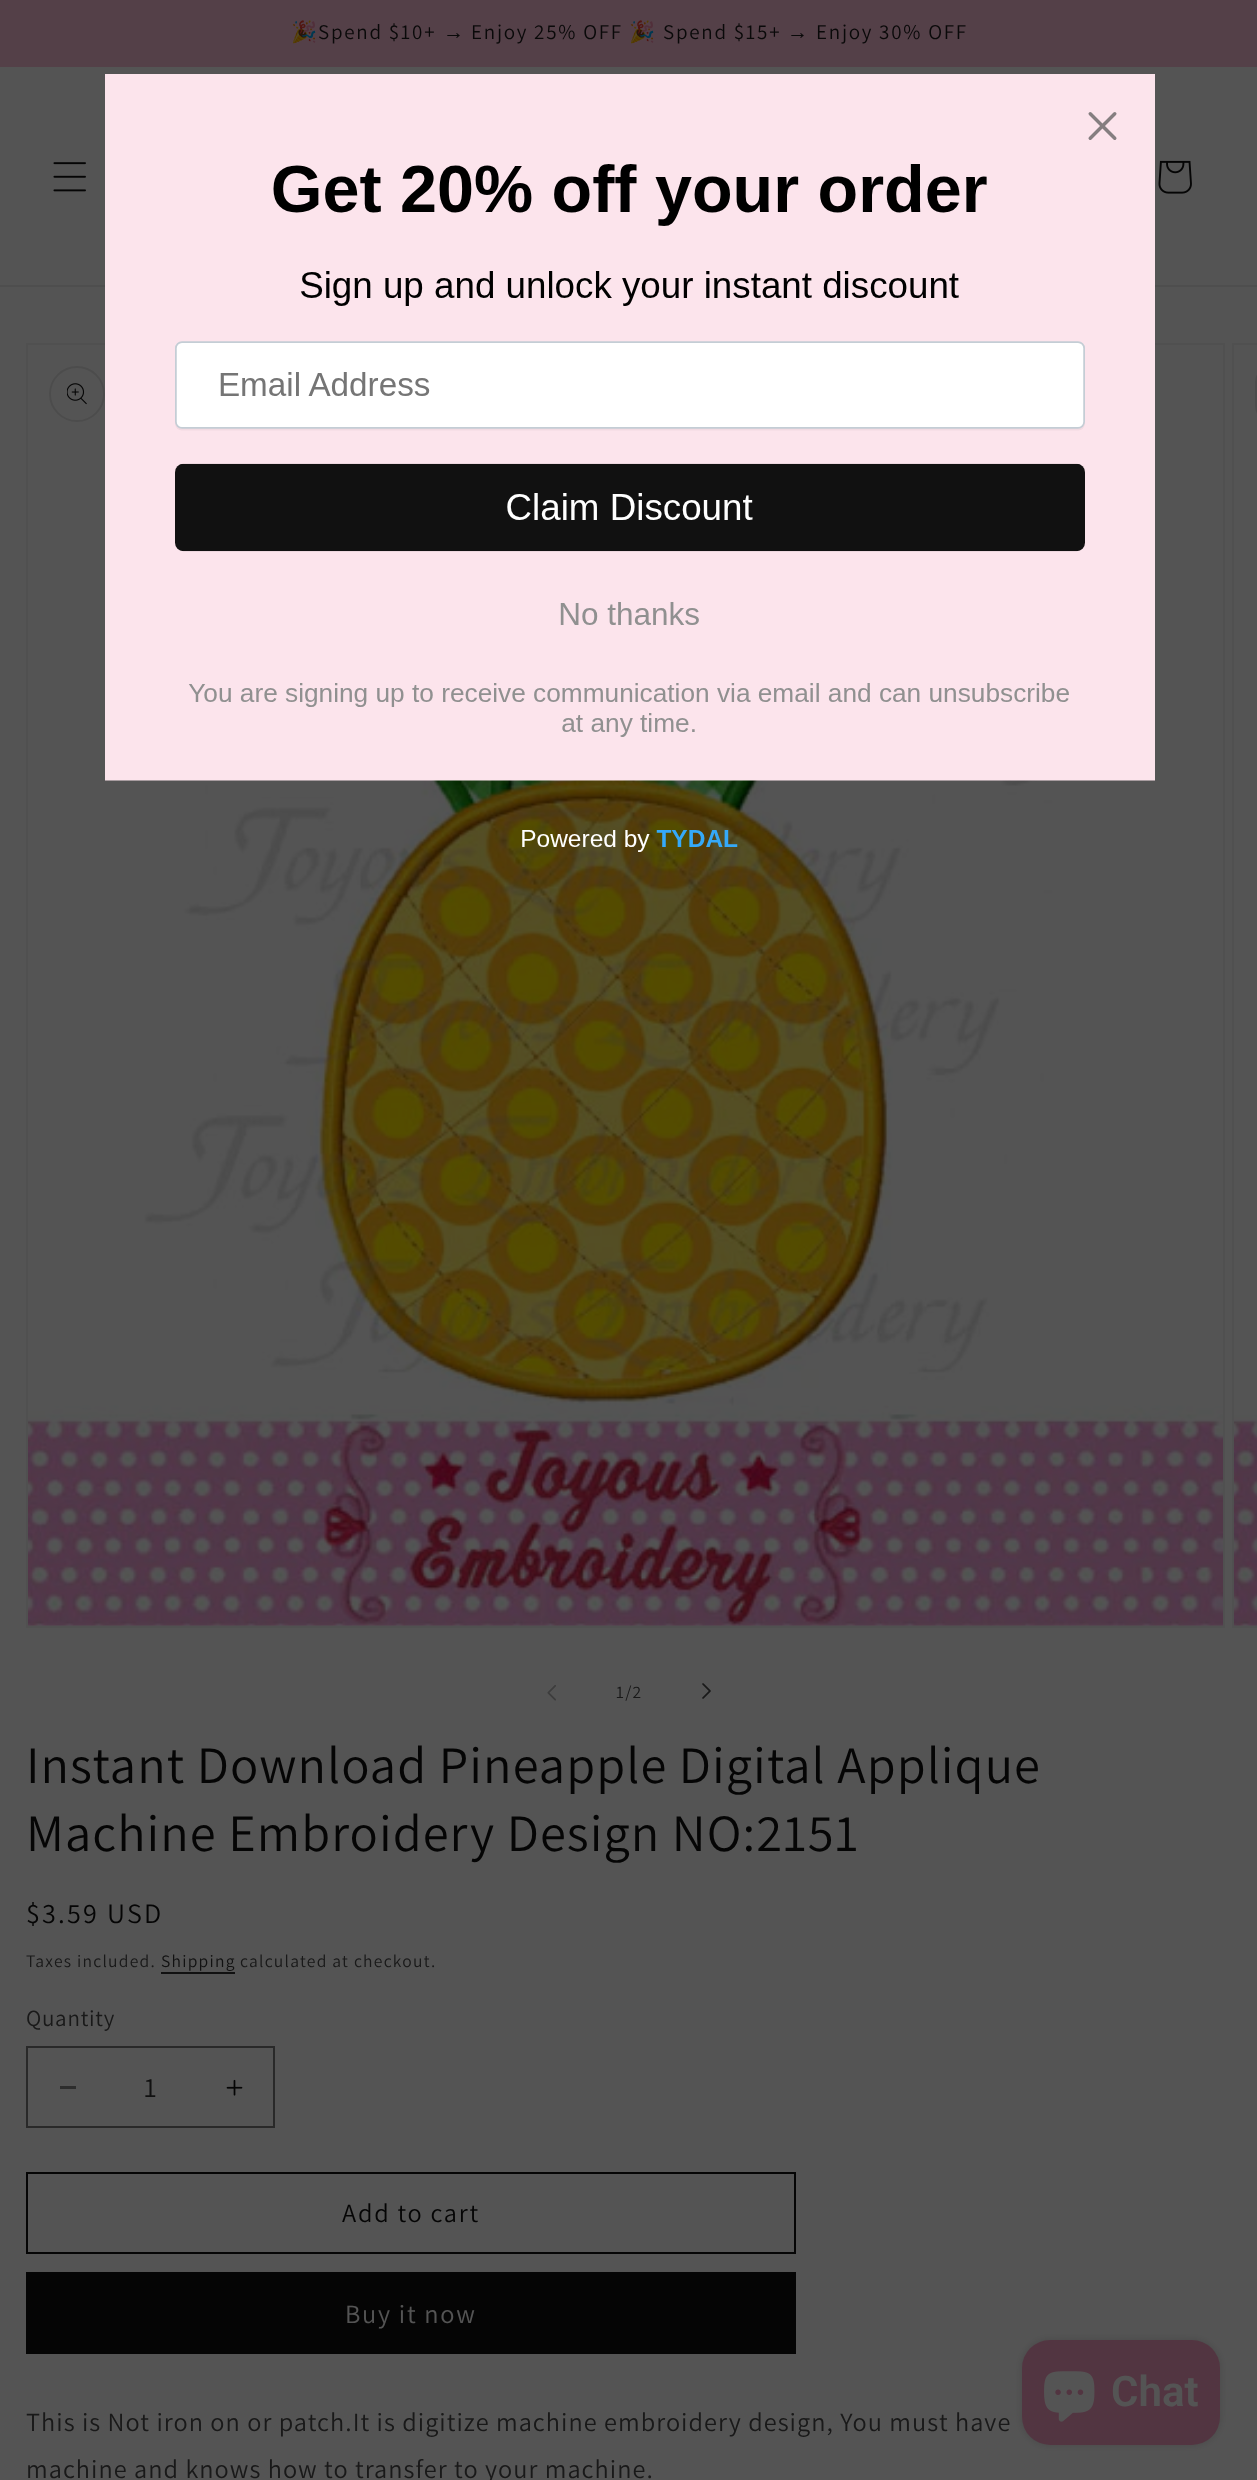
(async () => {
  const canvas = document.querySelector("canvas");
  canvas.width = 1257;
  canvas.height = 2480;
  const ctx = canvas.getContext("2d");
  ctx.miterLimit = 4;
  ctx.fontKerning = "normal";
  async function loadImage(src) {
    const img = new Image();
    img.src = src;
    await img.decode();
    return img;
  }

  ctx.fillStyle = "#ffffff";
  ctx.fillRect(0, 0, 1257, 2480);
  ctx.fillStyle = "#ffc1da";
  ctx.fillRect(0, 0, 1257, 67);
  ctx.fillStyle = "#ececec";
  ctx.fillRect(0, 285, 1257, 2);
  ctx.drawImage(await loadImage("img/2.png"), 53, 162, 33, 30);
  ctx.drawImage(await loadImage("img/3.png"), 1158, 160, 34, 34);
  ctx.strokeStyle = "#f3f3f3";
  ctx.lineWidth = 2;
  ctx.strokeRect(27, 344, 1197, 1283);
  ctx.drawImage(await loadImage("img/5.png"), 28, 417, 1196, 1209);
  ctx.beginPath();
  ctx.arc(77, 394, 27, 0, Math.PI * 2);
  ctx.strokeStyle = "#e7e7e7";
  ctx.stroke();
  ctx.drawImage(await loadImage("img/4.png"), 67, 383, 20, 22);
  ctx.strokeStyle = "#f3f3f3";
  ctx.strokeRect(1233, 344, 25, 1283);
  ctx.beginPath();
  ctx.roundRect(1256, 367, 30, 54, 27);
  ctx.strokeStyle = "#e7e7e7";
  ctx.stroke();
  ctx.drawImage(await loadImage("img/6.png"), 1233, 1415, 24, 211);
  ctx.drawImage(await loadImage("img/7.png"), 547, 1685, 9, 16);
  ctx.drawImage(await loadImage("img/8.png"), 702, 1683, 9, 16);
  ctx.fillStyle = "#363636";
  ctx.fillRect(161, 1972, 74, 2);
  ctx.fillStyle = "#898989";
  ctx.fillRect(60, 2086, 16, 3);
  ctx.drawImage(await loadImage("img/9.png"), 226, 2079, 17, 17);
  ctx.strokeStyle = "#7d7d7d";
  ctx.strokeRect(27, 2047, 247, 80);
  ctx.strokeStyle = "#121212";
  ctx.strokeRect(27, 2173, 768, 80);
  ctx.fillStyle = "#121212";
  ctx.fillRect(26, 2272, 770, 82);
  ctx.fillStyle = "rgba(0, 0, 0, 0.15)";
  ctx.filter = "blur(4.5px)";
  ctx.beginPath();
  ctx.roundRect(1022, 2340, 198, 105, 28);
  ctx.fill();
  ctx.filter = "none";
  ctx.fillStyle = "#f9a2c5";
  ctx.beginPath();
  ctx.roundRect(1022, 2340, 198, 105, 28);
  ctx.fill();
  ctx.drawImage(await loadImage("img/10.png"), 1044, 2371, 51, 51);
  ctx.letterSpacing = "1.75px";
  ctx.font = "21px Noto Color Emoji";
  ctx.fillStyle = "#1d1c1c";
  ctx.fillText("🎉", 291, 39);
  ctx.font = "21px Assistant";
  ctx.fillText("Spend $10+", 318, 39);
  ctx.font = "21px Liberation Sans";
  ctx.fillText("→", 443, 39);
  ctx.font = "21px Assistant";
  ctx.fillText("Enjoy 25% OFF", 471, 39);
  ctx.font = "21px Noto Color Emoji";
  ctx.fillText("🎉", 629, 39);
  ctx.font = "21px Assistant";
  ctx.fillText("Spend $15+", 663, 39);
  ctx.font = "21px Liberation Sans";
  ctx.fillText("→", 787, 39);
  ctx.font = "21px Assistant";
  ctx.fillText("Enjoy 30% OFF", 816, 39);
  ctx.letterSpacing = "1.25px";
  ctx.font = "17.5px Assistant";
  ctx.fillStyle = "#4d4d4d";
  ctx.fillText("1/2", 616, 1698);
  ctx.letterSpacing = "1.05px";
  ctx.font = "52.5px Assistant";
  ctx.fillStyle = "#121212";
  ctx.fillText("Instant Download Pineapple Digital Applique", 26, 1783);
  ctx.fillText("Machine Embroidery Design NO:2151", 26, 1851);
  ctx.letterSpacing = "2.25px";
  ctx.font = "28px Assistant";
  ctx.fillText("$3.59 USD", 26, 1923);
  ctx.letterSpacing = "1.25px";
  ctx.font = "17.5px Assistant";
  ctx.fillStyle = "#4d4d4d";
  ctx.fillText("Taxes included.", 26, 1967);
  ctx.fillStyle = "#363636";
  ctx.fillText("Shipping", 161, 1967);
  ctx.fillStyle = "#4d4d4d";
  ctx.fillText("calculated at checkout.", 240, 1967);
  ctx.letterSpacing = "0.75px";
  ctx.font = "23px Assistant";
  ctx.fillText("Quantity", 26, 2026);
  ctx.letterSpacing = "0px";
  ctx.font = "28px Assistant";
  ctx.fillStyle = "#363636";
  ctx.fillText("1", 144, 2097);
  ctx.letterSpacing = "1.75px";
  ctx.font = "26.25px Assistant";
  ctx.fillStyle = "#121212";
  ctx.fillText("Add to cart", 342, 2222);
  ctx.fillStyle = "#ffffff";
  ctx.fillText("Buy it now", 345, 2323);
  ctx.letterSpacing = "1.05px";
  ctx.fillStyle = "#4d4d4d";
  ctx.fillText("This is Not iron on or patch.It is digitize machine embroidery design, You must have", 26, 2431);
  ctx.fillText("machine and knows how to transfer to your machine.", 26, 2478);
  ctx.letterSpacing = "0px";
  ctx.font = "600 42px Roboto";
  ctx.fillStyle = "#ffffff";
  ctx.fillText("Chat", 1111, 2406);
  ctx.drawImage(await loadImage("img/1.png"), 0, 0, 1257, 2480);
})();
